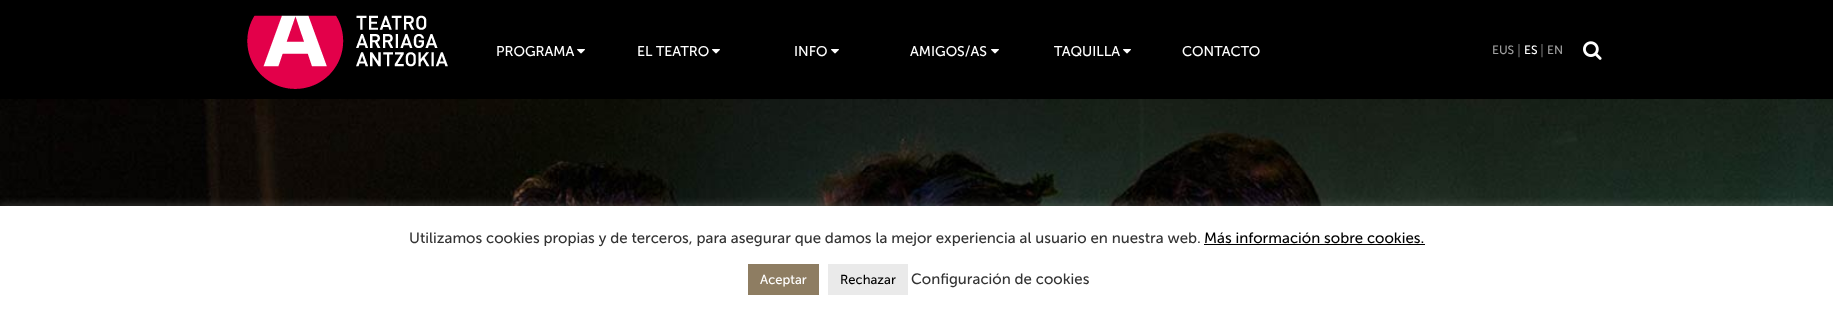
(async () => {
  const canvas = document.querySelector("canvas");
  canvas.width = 1833;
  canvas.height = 317;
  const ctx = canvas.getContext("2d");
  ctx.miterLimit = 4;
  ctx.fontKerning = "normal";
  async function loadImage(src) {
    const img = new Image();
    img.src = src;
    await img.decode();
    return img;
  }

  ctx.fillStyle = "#000000";
  ctx.fillRect(0, 0, 1833, 317);
  ctx.drawImage(await loadImage("img/1.png"), 247, 15, 201, 74);
  ctx.drawImage(await loadImage("img/2.png"), 577, 49, 8, 5);
  ctx.drawImage(await loadImage("img/2.png"), 712, 49, 8, 5);
  ctx.drawImage(await loadImage("img/2.png"), 831, 49, 8, 5);
  ctx.drawImage(await loadImage("img/2.png"), 991, 49, 8, 5);
  ctx.drawImage(await loadImage("img/2.png"), 1123, 49, 8, 5);
  ctx.drawImage(await loadImage("img/3.png"), 1583, 41, 19, 19);
  ctx.drawImage(await loadImage("img/4.png"), 0, 99, 1833, 107);
  ctx.fillStyle = "rgba(172, 171, 171, 0.3)";
  ctx.filter = "blur(5px)";
  ctx.beginPath();
  ctx.rect(0, 205, 1833, 111);
  ctx.fill();
  ctx.filter = "none";
  for (const [x, y, w, h, color] of [
    [0, 206, 1833, 111, "#ffffff"],
    [1204, 244, 221, 1, "#000000"],
    [748, 264, 71, 31, "#8e7d62"],
    [828, 264, 80, 31, "#eaeaea"],
  ]) {
    ctx.fillStyle = color;
    ctx.fillRect(x, y, w, h);
  }
  ctx.font = "14px Museo Sans";
  ctx.fillStyle = "#ffffff";
  for (const [text, x, y] of [
    ["PROGRAMA", 496, 56],
    ["EL TEATRO", 637, 56],
    ["INFO", 794, 56],
    ["AMIGOS/AS", 910, 56],
    ["TAQUILLA", 1054, 56],
    ["CONTACTO", 1182, 56],
  ]) {
    ctx.fillText(text, x, y);
  }
  ctx.font = "12px Museo Sans";
  ctx.fillStyle = "#a0a0a0";
  ctx.fillText("EUS", 1492, 54);
  ctx.font = "14px Museo Sans";
  ctx.fillStyle = "#666666";
  ctx.fillText("|", 1517, 55);
  ctx.font = "12px Museo Sans";
  ctx.fillStyle = "#ffffff";
  ctx.fillText("ES", 1524, 54);
  ctx.font = "14px Museo Sans";
  ctx.fillStyle = "#666666";
  ctx.fillText("|", 1540, 55);
  ctx.font = "12px Museo Sans";
  ctx.fillStyle = "#a0a0a0";
  ctx.fillText("EN", 1547, 54);
  ctx.font = "15px Museo Sans";
  ctx.fillStyle = "#333333";
  ctx.fillText("Utilizamos cookies propias y de terceros, para asegurar que damos la mejor experiencia al usuario en nuestra web.", 409, 243);
  ctx.fillStyle = "#000000";
  ctx.fillText("Más información sobre cookies.", 1204, 243);
  ctx.font = "13px Museo Sans";
  ctx.fillStyle = "#ffffff";
  ctx.fillText("Aceptar", 760, 284);
  ctx.fillStyle = "#000000";
  ctx.fillText("Rechazar", 840, 284);
  ctx.font = "15px Museo Sans";
  ctx.fillStyle = "#333333";
  ctx.fillText("Configuración de cookies", 911, 284);
})();
